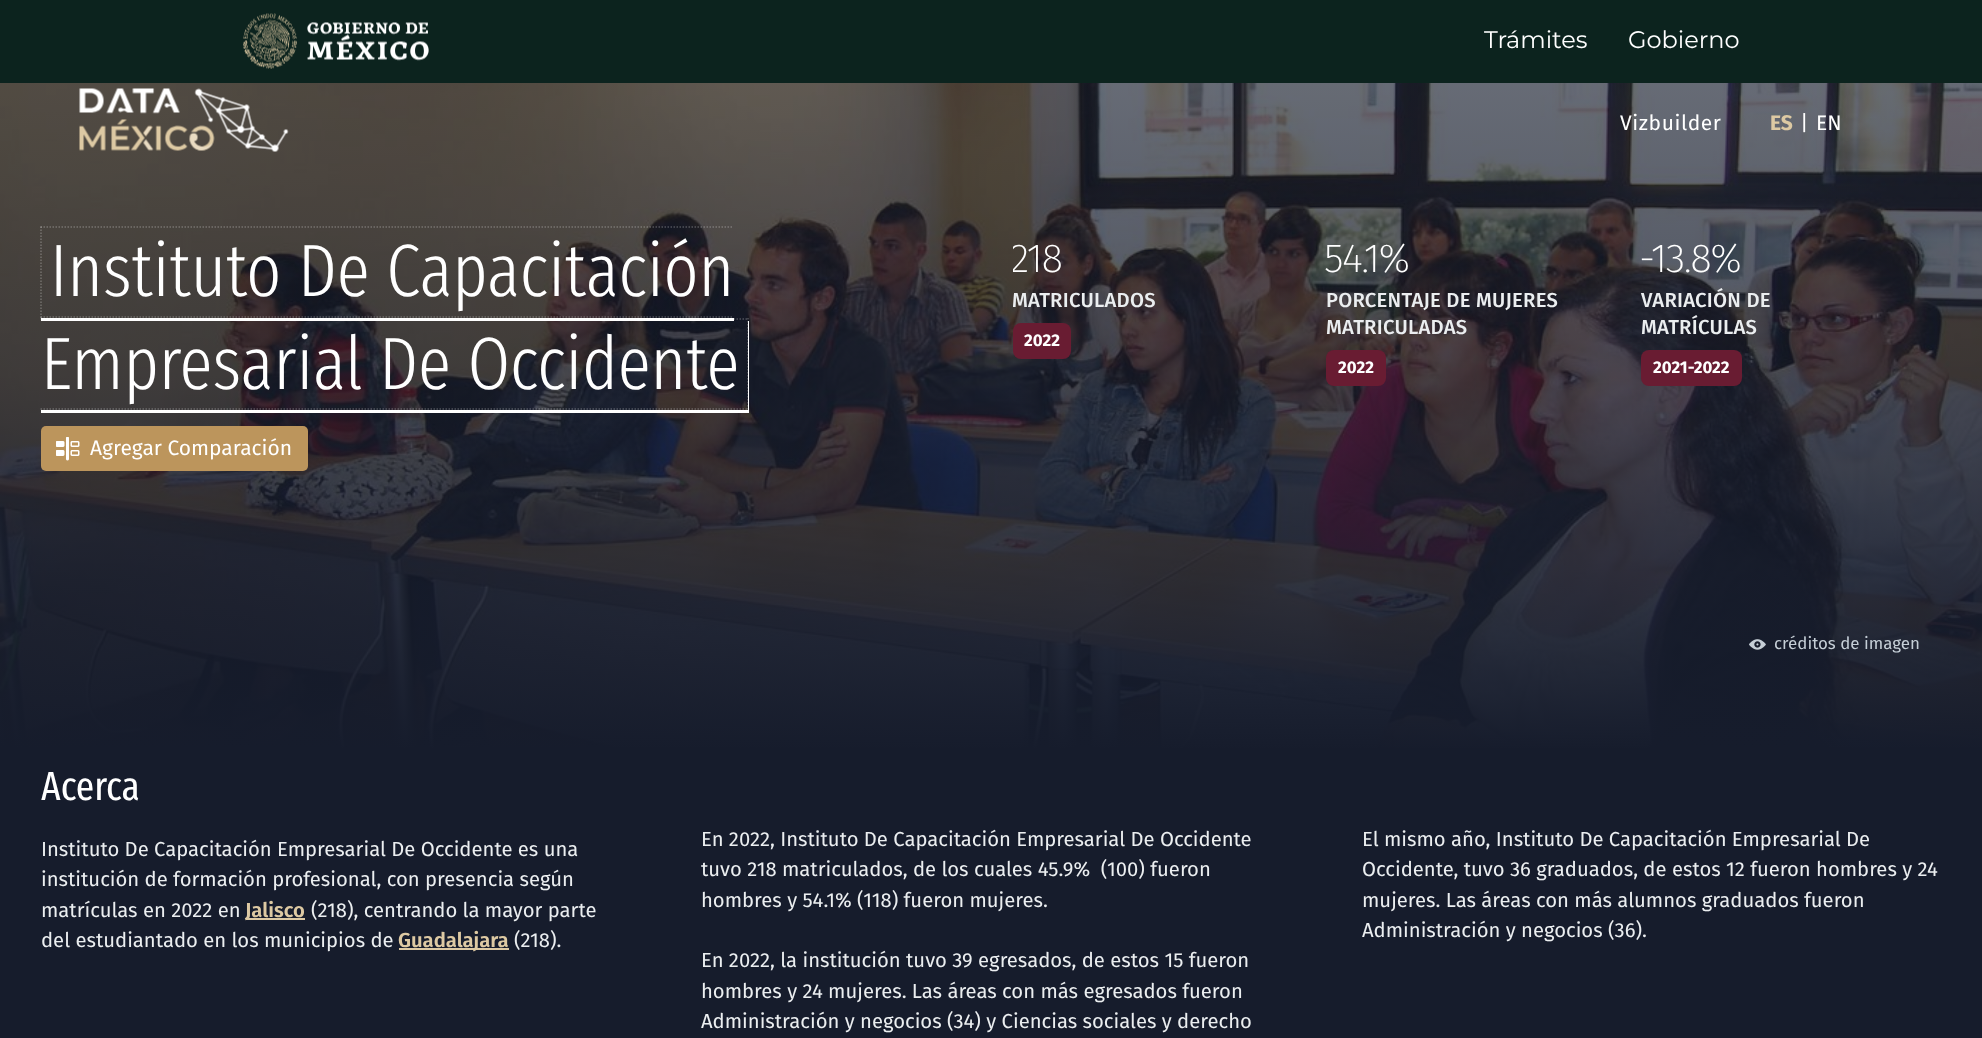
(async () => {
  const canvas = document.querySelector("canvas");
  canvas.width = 1982;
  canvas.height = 1038;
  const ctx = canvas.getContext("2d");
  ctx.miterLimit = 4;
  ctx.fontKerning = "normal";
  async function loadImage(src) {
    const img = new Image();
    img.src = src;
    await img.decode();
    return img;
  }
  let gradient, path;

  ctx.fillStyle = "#161c2c";
  ctx.fillRect(0, 0, 1982, 1038);
  ctx.fillStyle = "#0c231e";
  ctx.fillRect(0, 0, 1982, 83);
  ctx.drawImage(await loadImage("img/1.png"), 243, 13, 186, 56);
  ctx.drawImage(await loadImage("img/3.png"), 0, 83, 1982, 665);
  gradient = ctx.createLinearGradient(992, 0, 992, 752);
  gradient.addColorStop(0, "rgba(22, 28, 44, 0.5)");
  gradient.addColorStop(0.1, "rgba(22, 28, 44, 0.3)");
  gradient.addColorStop(0.5, "rgba(22, 28, 44, 0.5)");
  gradient.addColorStop(1, "#161c2c");
  ctx.fillStyle = gradient;
  ctx.fillRect(0, 83, 1982, 665);
  ctx.drawImage(await loadImage("img/2.png"), 79, 88, 210, 64);
  ctx.fillStyle = "#ffffff";
  path = new Path2D("M41 318V321H734V230V318Z");
  ctx.fill(path);
  path = new Path2D("M40.5 227H733.5");
  ctx.strokeStyle = "rgba(255, 255, 255, 0.25)";
  ctx.lineWidth = 1.5;
  ctx.setLineDash([1.5, 1.5]);
  ctx.stroke(path);
  path = new Path2D("M40.5 317H733.5");
  ctx.stroke(path);
  path = new Path2D("M41 226.5V318");
  ctx.stroke(path);
  path = new Path2D("M40.5 319H748.5");
  ctx.stroke(path);
  path = new Path2D("M41 410V413H749V321H748V410Z");
  ctx.fill(path);
  path = new Path2D("M748 318V409.5");
  ctx.stroke(path);
  path = new Path2D("M40.5 409H748.5");
  ctx.stroke(path);
  ctx.fillStyle = "#bc955c";
  ctx.beginPath();
  ctx.roundRect(41, 426, 267, 45, 5);
  ctx.fill();
  ctx.drawImage(await loadImage("img/4.png"), 56, 437, 24, 24);
  ctx.fillStyle = "#691c32";
  ctx.beginPath();
  ctx.roundRect(1013, 323, 58, 36, 8);
  ctx.fill();
  ctx.beginPath();
  ctx.roundRect(1326, 350, 60, 36, 8);
  ctx.fill();
  ctx.beginPath();
  ctx.roundRect(1641, 350, 101, 36, 8);
  ctx.fill();
  ctx.drawImage(await loadImage("img/5.png"), 1749, 639, 17, 11);
  ctx.fillStyle = "#ddc9a3";
  ctx.fillRect(246, 918, 59, 2);
  ctx.fillRect(399, 948, 110, 2);
  ctx.font = "24px Montserrat";
  ctx.fillStyle = "#ffffff";
  ctx.fillText("Trámites", 1484, 48);
  ctx.fillText("Gobierno", 1628, 48);
  ctx.letterSpacing = "0.6px";
  ctx.font = "21px Fira Sans";
  ctx.fillText("Vizbuilder", 1620, 130);
  ctx.letterSpacing = "0px";
  ctx.font = "bold 21px Fira Sans";
  ctx.fillStyle = "#ddc9a3";
  ctx.fillText("ES", 1770, 130);
  ctx.font = "21px Fira Sans";
  ctx.fillStyle = "#ffffff";
  ctx.fillText("|", 1800, 130);
  ctx.fillText("EN", 1816, 130);
  ctx.font = "300 74.25px Fira Sans Extra Condensed";
  ctx.fillText("Instituto De Capacitación", 50, 296);
  ctx.fillText("Empresarial De Occidente", 41, 389);
  ctx.font = "21px Fira Sans";
  ctx.fillText("Agregar Comparación", 90, 455);
  ctx.save();
  ctx.beginPath();
  ctx.rect(1013, 227, 930, 285);
  ctx.clip();
  ctx.letterSpacing = "-1.5px";
  ctx.font = "200 40.5px Fira Sans";
  ctx.fillText("218", 1010, 272);
  ctx.letterSpacing = "0.25px";
  ctx.font = "500 20.25px Fira Sans";
  ctx.fillStyle = "#ebeef0";
  ctx.fillText("MATRICULADOS", 1012, 307);
  ctx.restore();
  ctx.font = "bold 16.9px Fira Sans";
  ctx.fillText("2022", 1024, 346);
  ctx.letterSpacing = "-1.5px";
  ctx.font = "200 40.5px Fira Sans";
  ctx.fillText("54.1%", 1324, 272);
  ctx.letterSpacing = "0.25px";
  ctx.font = "500 20.25px Fira Sans";
  ctx.fillStyle = "#ebeef0";
  ctx.fillText("PORCENTAJE DE MUJERES", 1326, 307);
  ctx.fillText("MATRICULADAS", 1326, 334);
  ctx.letterSpacing = "0px";
  ctx.font = "bold 16.9px Fira Sans";
  ctx.fillStyle = "#ffffff";
  ctx.fillText("2022", 1338, 373);
  ctx.letterSpacing = "-1.5px";
  ctx.font = "200 40.5px Fira Sans";
  ctx.fillText("-13.8%", 1639, 272);
  ctx.letterSpacing = "0.25px";
  ctx.font = "500 20.25px Fira Sans";
  ctx.fillStyle = "#ebeef0";
  ctx.fillText("VARIACIÓN DE", 1641, 307);
  ctx.fillText("MATRÍCULAS", 1641, 334);
  ctx.letterSpacing = "0px";
  ctx.font = "bold 16.9px Fira Sans";
  ctx.fillStyle = "#ffffff";
  ctx.fillText("2021-2022", 1653, 373);
  ctx.font = "16.9px Fira Sans";
  ctx.fillStyle = "#c5ced6";
  ctx.fillText("créditos de imagen", 1774, 649);
  ctx.font = "40.5px Fira Sans Extra Condensed";
  ctx.fillStyle = "#ffffff";
  ctx.fillText("Acerca", 41, 800);
  ctx.font = "20.25px Fira Sans";
  ctx.fillStyle = "#ebeef0";
  for (const [text, x, y] of [
    ["Instituto De Capacitación Empresarial De Occidente es una", 41, 856],
    ["institución de formación profesional, con presencia según", 41, 886],
    ["matrículas en 2022 en", 41, 917],
  ]) {
    ctx.fillText(text, x, y);
  }
  ctx.font = "600 20.25px Fira Sans";
  ctx.fillStyle = "#ddc9a3";
  ctx.fillText("Jalisco", 245, 917);
  ctx.font = "20.25px Fira Sans";
  ctx.fillStyle = "#ebeef0";
  ctx.fillText("(218), centrando la mayor parte", 311, 917);
  ctx.fillText("del estudiantado en los municipios de", 41, 947);
  ctx.font = "600 20.25px Fira Sans";
  ctx.fillStyle = "#ddc9a3";
  ctx.fillText("Guadalajara", 398, 947);
  ctx.font = "20.25px Fira Sans";
  ctx.fillStyle = "#ebeef0";
  for (const [text, x, y] of [
    ["(218).", 514, 947],
    ["En 2022, Instituto De Capacitación Empresarial De Occidente", 701, 846],
    ["tuvo 218 matriculados, de los cuales 45.9%  (100) fueron", 701, 876],
    ["hombres y 54.1% (118) fueron mujeres.", 701, 907],
    ["El mismo año, Instituto De Capacitación Empresarial De", 1362, 846],
    ["Occidente, tuvo 36 graduados, de estos 12 fueron hombres y 24", 1362, 876],
    ["mujeres. Las áreas con más alumnos graduados fueron", 1362, 907],
    ["Administración y negocios (36).", 1362, 937],
    ["En 2022, la institución tuvo 39 egresados, de estos 15 fueron", 701, 967],
    ["hombres y 24 mujeres. Las áreas con más egresados fueron", 701, 998],
    ["Administración y negocios (34) y Ciencias sociales y derecho", 701, 1028],
  ]) {
    ctx.fillText(text, x, y);
  }
})();
